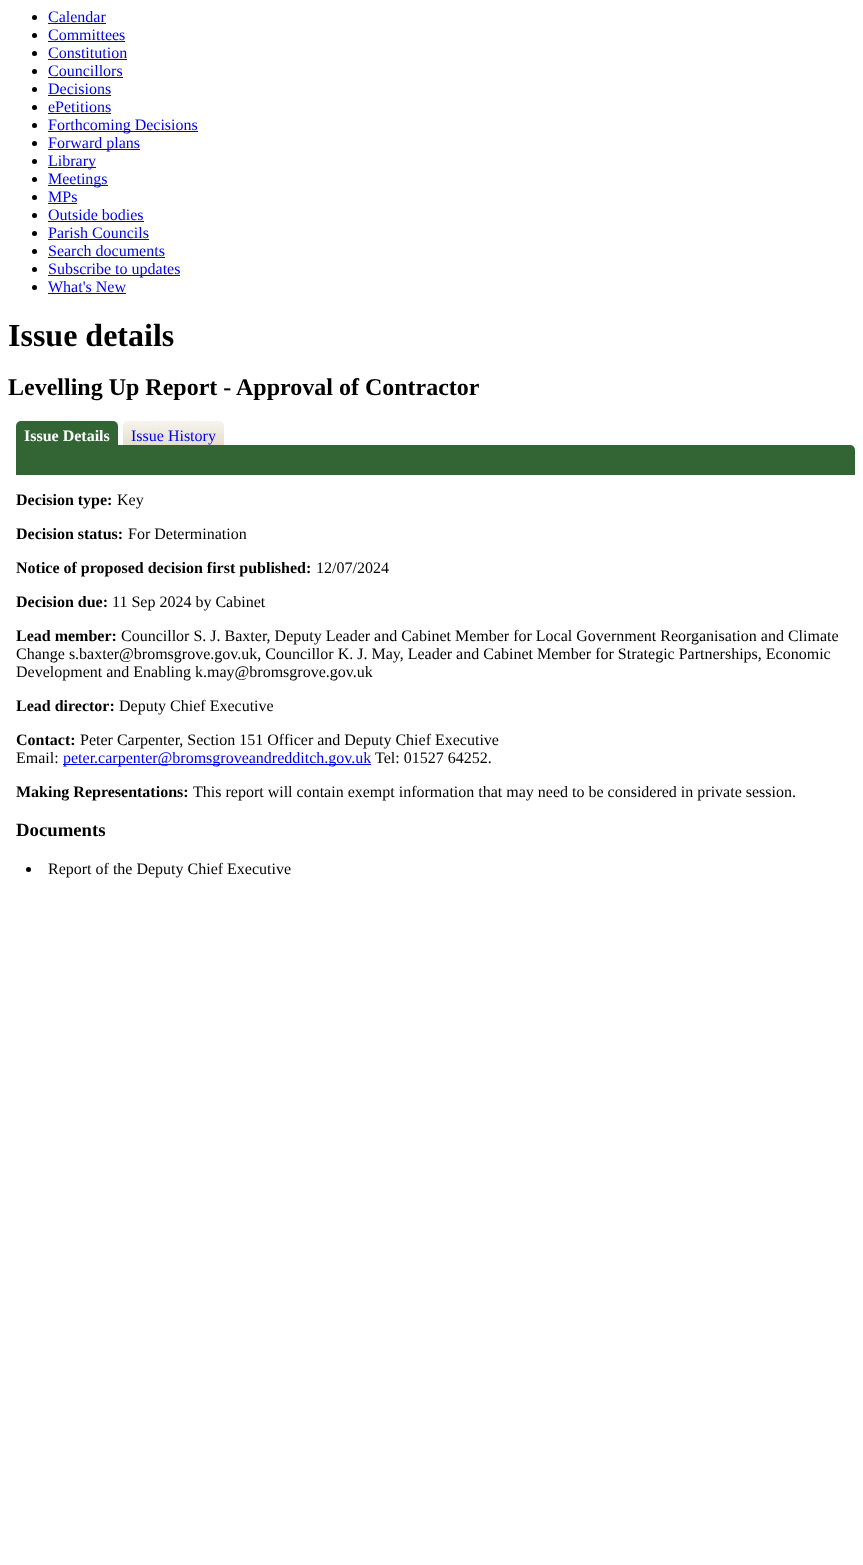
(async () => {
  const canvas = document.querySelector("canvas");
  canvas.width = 863;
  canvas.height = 1565;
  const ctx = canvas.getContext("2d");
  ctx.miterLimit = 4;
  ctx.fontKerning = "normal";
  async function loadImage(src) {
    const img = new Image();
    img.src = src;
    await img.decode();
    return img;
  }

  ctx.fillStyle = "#ffffff";
  ctx.fillRect(0, 0, 863, 1565);
  ctx.fillStyle = "#000000";
  ctx.beginPath();
  ctx.arc(34.5, 17.5, 2.5, 0, Math.PI * 2);
  ctx.fill();
  ctx.fillStyle = "#0000ee";
  ctx.fillRect(48, 23, 58, 1);
  ctx.fillStyle = "#000000";
  ctx.beginPath();
  ctx.arc(34.5, 35.5, 2.5, 0, Math.PI * 2);
  ctx.fill();
  ctx.fillStyle = "#0000ee";
  ctx.fillRect(48, 41, 77, 1);
  ctx.fillStyle = "#000000";
  ctx.beginPath();
  ctx.arc(34.5, 53.5, 2.5, 0, Math.PI * 2);
  ctx.fill();
  ctx.fillStyle = "#0000ee";
  ctx.fillRect(48, 59, 79, 1);
  ctx.fillStyle = "#000000";
  ctx.beginPath();
  ctx.arc(34.5, 71.5, 2.5, 0, Math.PI * 2);
  ctx.fill();
  ctx.fillStyle = "#0000ee";
  ctx.fillRect(48, 77, 75, 1);
  ctx.fillStyle = "#000000";
  ctx.beginPath();
  ctx.arc(34.5, 89.5, 2.5, 0, Math.PI * 2);
  ctx.fill();
  ctx.fillStyle = "#0000ee";
  ctx.fillRect(48, 95, 63, 1);
  ctx.fillStyle = "#000000";
  ctx.beginPath();
  ctx.arc(34.5, 107.5, 2.5, 0, Math.PI * 2);
  ctx.fill();
  ctx.fillStyle = "#0000ee";
  ctx.fillRect(48, 113, 63, 1);
  ctx.fillStyle = "#000000";
  ctx.beginPath();
  ctx.arc(34.5, 125.5, 2.5, 0, Math.PI * 2);
  ctx.fill();
  ctx.fillStyle = "#0000ee";
  ctx.fillRect(48, 131, 150, 1);
  ctx.fillStyle = "#000000";
  ctx.beginPath();
  ctx.arc(34.5, 143.5, 2.5, 0, Math.PI * 2);
  ctx.fill();
  ctx.fillStyle = "#0000ee";
  ctx.fillRect(48, 149, 92, 1);
  ctx.fillStyle = "#000000";
  ctx.beginPath();
  ctx.arc(34.5, 161.5, 2.5, 0, Math.PI * 2);
  ctx.fill();
  ctx.fillStyle = "#0000ee";
  ctx.fillRect(48, 167, 48, 1);
  ctx.fillStyle = "#000000";
  ctx.beginPath();
  ctx.arc(34.5, 179.5, 2.5, 0, Math.PI * 2);
  ctx.fill();
  ctx.fillStyle = "#0000ee";
  ctx.fillRect(48, 185, 60, 1);
  ctx.fillStyle = "#000000";
  ctx.beginPath();
  ctx.arc(34.5, 197.5, 2.5, 0, Math.PI * 2);
  ctx.fill();
  ctx.fillStyle = "#0000ee";
  ctx.fillRect(48, 203, 29, 1);
  ctx.fillStyle = "#000000";
  ctx.beginPath();
  ctx.arc(34.5, 215.5, 2.5, 0, Math.PI * 2);
  ctx.fill();
  ctx.fillStyle = "#0000ee";
  ctx.fillRect(48, 221, 96, 1);
  ctx.fillStyle = "#000000";
  ctx.beginPath();
  ctx.arc(34.5, 233.5, 2.5, 0, Math.PI * 2);
  ctx.fill();
  ctx.fillStyle = "#0000ee";
  ctx.fillRect(48, 239, 101, 1);
  ctx.fillStyle = "#000000";
  ctx.beginPath();
  ctx.arc(34.5, 251.5, 2.5, 0, Math.PI * 2);
  ctx.fill();
  ctx.fillStyle = "#0000ee";
  ctx.fillRect(48, 257, 117, 1);
  ctx.fillStyle = "#000000";
  ctx.beginPath();
  ctx.arc(34.5, 269.5, 2.5, 0, Math.PI * 2);
  ctx.fill();
  ctx.fillStyle = "#0000ee";
  ctx.fillRect(48, 275, 132, 1);
  ctx.fillStyle = "#000000";
  ctx.beginPath();
  ctx.arc(34.5, 287.5, 2.5, 0, Math.PI * 2);
  ctx.fill();
  ctx.fillStyle = "#0000ee";
  ctx.fillRect(48, 293, 78, 1);
  ctx.fillStyle = "#336534";
  ctx.beginPath();
  ctx.roundRect(16, 421, 102, 24, [5, 5, 0, 0]);
  ctx.fill();
  ctx.drawImage(await loadImage("img/1.png"), 123, 421, 101, 24);
  ctx.beginPath();
  ctx.roundRect(16, 445, 839, 30, [0, 5, 0, 0]);
  ctx.fill();
  ctx.fillStyle = "#0000ee";
  ctx.fillRect(63, 764, 308, 1);
  ctx.fillStyle = "#000000";
  ctx.beginPath();
  ctx.arc(28.5, 869.5, 2.5, 0, Math.PI * 2);
  ctx.fill();
  ctx.font = "16px Liberation Serif";
  ctx.fillStyle = "#0000ee";
  for (const [text, x, y] of [
    ["Calendar", 48, 22],
    ["Committees", 48, 40],
    ["Constitution", 48, 58],
    ["Councillors", 48, 76],
    ["Decisions", 48, 94],
    ["ePetitions", 48, 112],
    ["Forthcoming Decisions", 48, 130],
    ["Forward plans", 48, 148],
    ["Library", 48, 166],
    ["Meetings", 48, 184],
    ["MPs", 48, 202],
    ["Outside bodies", 48, 220],
    ["Parish Councils", 48, 238],
    ["Search documents", 48, 256],
    ["Subscribe to updates", 48, 274],
    ["What's New", 48, 292],
  ]) {
    ctx.fillText(text, x, y);
  }
  ctx.font = "bold 32px Liberation Serif";
  ctx.fillStyle = "#000000";
  ctx.fillText("Issue details", 8, 346);
  ctx.font = "bold 24px Liberation Serif";
  ctx.fillText("Levelling Up Report - Approval of Contractor", 8, 395);
  ctx.font = "bold 16px Liberation Serif";
  ctx.fillStyle = "#ffffff";
  ctx.fillText("Issue Details", 24, 441);
  ctx.font = "16px Liberation Serif";
  ctx.fillStyle = "#0000ee";
  ctx.fillText("Issue History", 131, 441);
  ctx.font = "bold 16px Liberation Serif";
  ctx.fillStyle = "#000000";
  ctx.fillText("Decision type:", 16, 505);
  ctx.font = "16px Liberation Serif";
  ctx.fillText("Key", 117, 505);
  ctx.font = "bold 16px Liberation Serif";
  ctx.fillText("Decision status:", 16, 539);
  ctx.font = "16px Liberation Serif";
  ctx.fillText("For Determination", 128, 539);
  ctx.font = "bold 16px Liberation Serif";
  ctx.fillText("Notice of proposed decision first published:", 16, 573);
  ctx.font = "16px Liberation Serif";
  ctx.fillText("12/07/2024", 316, 573);
  ctx.font = "bold 16px Liberation Serif";
  ctx.fillText("Decision due:", 16, 607);
  ctx.font = "16px Liberation Serif";
  ctx.fillText("11 Sep 2024 by Cabinet", 112, 607);
  ctx.font = "bold 16px Liberation Serif";
  ctx.fillText("Lead member:", 16, 641);
  ctx.font = "16px Liberation Serif";
  for (const [text, x, y] of [
    ["Councillor S. J. Baxter, Deputy Leader and Cabinet Member for Local Government Reorganisation and Climate", 121, 641],
    ["Change s.baxter@bromsgrove.gov.uk, Councillor K. J. May, Leader and Cabinet Member for Strategic Partnerships, Economic", 16, 659],
    ["Development and Enabling k.may@bromsgrove.gov.uk", 16, 677],
  ]) {
    ctx.fillText(text, x, y);
  }
  ctx.font = "bold 16px Liberation Serif";
  ctx.fillText("Lead director:", 16, 711);
  ctx.font = "16px Liberation Serif";
  ctx.fillText("Deputy Chief Executive", 119, 711);
  ctx.font = "bold 16px Liberation Serif";
  ctx.fillText("Contact:", 16, 745);
  ctx.font = "16px Liberation Serif";
  ctx.fillText("Peter Carpenter, Section 151 Officer and Deputy Chief Executive", 80, 745);
  ctx.fillText("Email:", 16, 763);
  ctx.fillStyle = "#0000ee";
  ctx.fillText("peter.carpenter@bromsgroveandredditch.gov.uk", 63, 763);
  ctx.fillStyle = "#000000";
  ctx.fillText("Tel: 01527 64252.", 375, 763);
  ctx.font = "bold 16px Liberation Serif";
  ctx.fillText("Making Representations:", 16, 797);
  ctx.font = "16px Liberation Serif";
  ctx.fillText("This report will contain exempt information that may need to be considered in private session.", 193, 797);
  ctx.font = "bold 18.75px Liberation Serif";
  ctx.fillText("Documents", 16, 836);
  ctx.font = "16px Liberation Serif";
  ctx.fillText("Report of the Deputy Chief Executive", 48, 874);
})();
